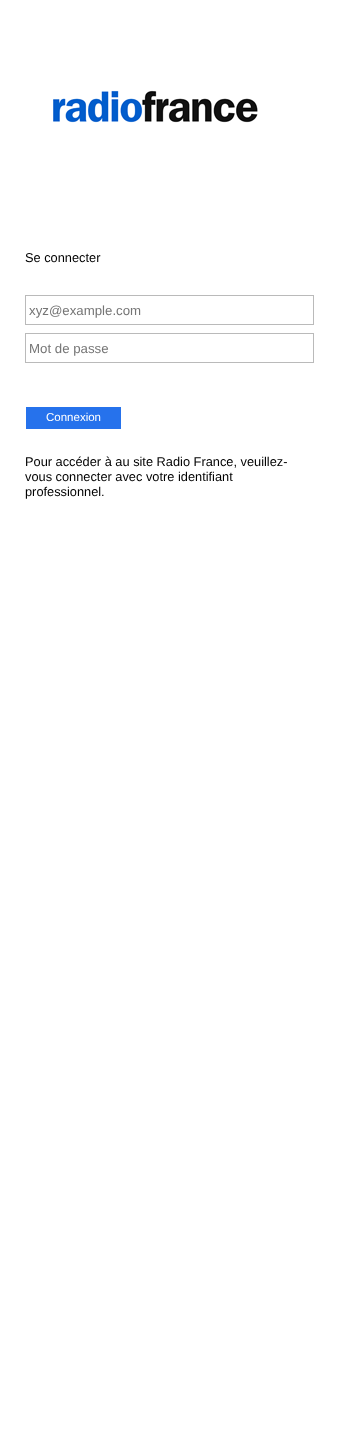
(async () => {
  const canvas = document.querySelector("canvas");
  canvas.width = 339;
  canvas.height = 1437;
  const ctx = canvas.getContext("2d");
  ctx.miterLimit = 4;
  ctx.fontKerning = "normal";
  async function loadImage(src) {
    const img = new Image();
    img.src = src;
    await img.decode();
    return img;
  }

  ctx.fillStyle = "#ffffff";
  ctx.fillRect(0, 0, 339, 1437);
  ctx.drawImage(await loadImage("img/1.png"), 53, 90, 205, 33);
  ctx.strokeStyle = "#bababa";
  ctx.strokeRect(25.5, 295.5, 288, 29);
  ctx.strokeRect(25.5, 333.5, 288, 29);
  ctx.fillStyle = "#2672ec";
  ctx.fillRect(26, 407, 95, 22);
  ctx.font = "12.8px Liberation Sans";
  ctx.fillStyle = "#000000";
  ctx.fillText("Se connecter", 25, 262);
  ctx.font = "13.25px Liberation Sans";
  ctx.fillStyle = "#757575";
  ctx.fillText("xyz@example.com", 29, 315);
  ctx.fillText("Mot de passe", 29, 353);
  ctx.font = "11.5px Liberation Sans";
  ctx.fillStyle = "#ffffff";
  ctx.fillText("Connexion", 46, 421);
  ctx.font = "12.8px Liberation Sans";
  ctx.fillStyle = "#000000";
  for (const [text, x, y] of [
    ["Pour accéder à au site Radio France, veuillez-", 25, 466],
    ["vous connecter avec votre identifiant", 25, 481],
    ["professionnel.", 25, 496],
  ]) {
    ctx.fillText(text, x, y);
  }
})();
